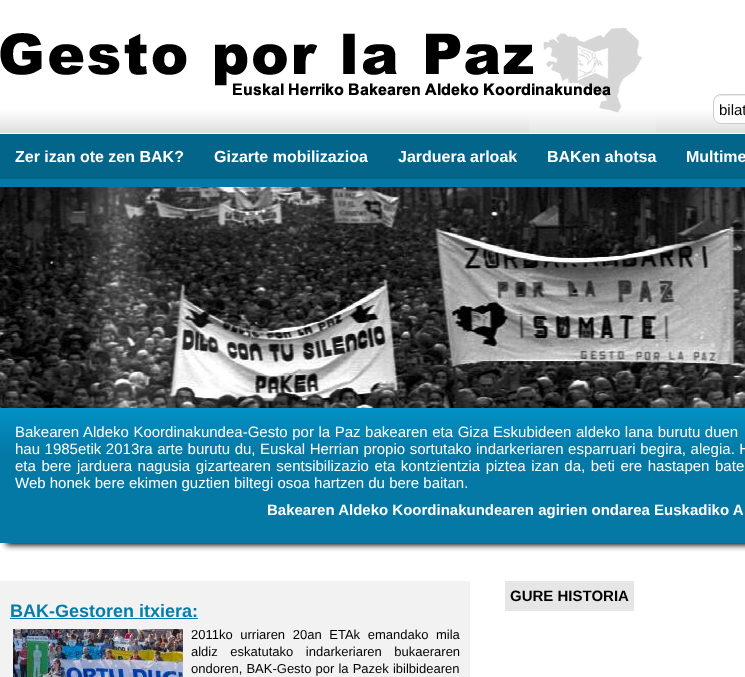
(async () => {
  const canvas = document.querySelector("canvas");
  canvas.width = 745;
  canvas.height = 677;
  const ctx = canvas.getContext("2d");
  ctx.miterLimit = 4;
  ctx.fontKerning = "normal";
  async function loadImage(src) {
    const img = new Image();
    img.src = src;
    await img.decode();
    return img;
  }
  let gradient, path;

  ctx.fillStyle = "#ffffff";
  ctx.fillRect(0, 0, 745, 677);
  ctx.drawImage(await loadImage("img/1.png"), 0, 0, 745, 134);
  ctx.drawImage(await loadImage("img/2.png"), 0, 27, 656, 106);
  ctx.beginPath();
  ctx.roundRect(713, 94, 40, 30, 8);
  ctx.fill();
  ctx.fillStyle = "#ececec";
  path = new Path2D("M721 96H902C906 96 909 99 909 103V102C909 98 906 95 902 95H721C717 95 714 98 714 102V103C714 99 717 96 721 96Z");
  ctx.fill(path);
  ctx.beginPath();
  ctx.roundRect(713.5, 94.5, 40, 29, 7.5);
  ctx.strokeStyle = "#cccccc";
  ctx.stroke();
  ctx.fillStyle = "#04658b";
  ctx.fillRect(0, 134, 745, 45);
  ctx.fillStyle = "#0479a6";
  ctx.fillRect(0, 179, 745, 8);
  ctx.fillStyle = "#000000";
  ctx.filter = "blur(3px)";
  ctx.beginPath();
  ctx.rect(6, 201, 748, 344);
  ctx.fill();
  ctx.filter = "none";
  ctx.drawImage(await loadImage("img/3.png"), 0, 187, 745, 221);
  gradient = ctx.createLinearGradient(500, 408, 500, 543);
  gradient.addColorStop(0, "#0491c6");
  gradient.addColorStop(0.33, "#0479a6");
  ctx.fillStyle = gradient;
  ctx.fillRect(0, 408, 745, 135);
  for (const [x, y, w, h, color] of [
    [505, 581, 129, 30, "#e6e6e6"],
    [0, 581, 470, 96, "#f2f2f2"],
    [10, 618, 188, 1, "#057dab"],
  ]) {
    ctx.fillStyle = color;
    ctx.fillRect(x, y, w, h);
  }
  ctx.drawImage(await loadImage("img/4.png"), 13, 629, 170, 48);
  ctx.font = "15px Liberation Sans";
  ctx.fillStyle = "#000000";
  ctx.fillText("bilat", 719, 115);
  ctx.font = "bold 16px Liberation Sans";
  ctx.fillStyle = "#ffffff";
  for (const [text, x, y] of [
    ["Zer izan ote zen BAK?", 15, 162],
    ["Gizarte mobilizazioa", 214, 162],
    ["Jarduera arloak", 398, 162],
    ["BAKen ahotsa", 547, 162],
    ["Multime", 686, 162],
  ]) {
    ctx.fillText(text, x, y);
  }
  ctx.wordSpacing = "0.4px";
  ctx.font = "15px Liberation Sans";
  ctx.fillText("Bakearen Aldeko Koordinakundea-Gesto por la Paz bakearen eta Giza Eskubideen aldeko lana burutu duen", 15, 437);
  ctx.fillText("hau 1985etik 2013ra arte burutu du, Euskal Herrian propio sortutako indarkeriaren esparruari begira, alegia. H", 15, 454);
  ctx.wordSpacing = "1.4px";
  ctx.fillText("eta bere jarduera nagusia gizartearen sentsibilizazio eta kontzientzia piztea izan da, beti ere hastapen bate", 15, 471);
  ctx.wordSpacing = "0px";
  ctx.fillText("Web honek bere ekimen guztien biltegi osoa hartzen du bere baitan.", 15, 488);
  ctx.font = "bold 15px Liberation Sans";
  ctx.fillText("Bakearen Aldeko Koordinakundearen agirien ondarea Euskadiko A", 267, 515);
  ctx.fillStyle = "#000000";
  ctx.fillText("GURE HISTORIA", 510, 601);
  ctx.font = "bold 18px Liberation Sans";
  ctx.fillStyle = "#057dab";
  ctx.fillText("BAK-Gestoren itxiera:", 10, 617);
  ctx.wordSpacing = "4px";
  ctx.font = "13px Liberation Sans";
  ctx.fillStyle = "#000000";
  ctx.fillText("2011ko urriaren 20an ETAk emandako mila", 191, 639);
  ctx.wordSpacing = "9px";
  ctx.fillText("aldiz eskatutako indarkeriaren bukaeraren", 191, 656);
  ctx.wordSpacing = "0.5px";
  ctx.fillText("ondoren, BAK-Gesto por la Pazek ibilbidearen", 191, 673);
})();
